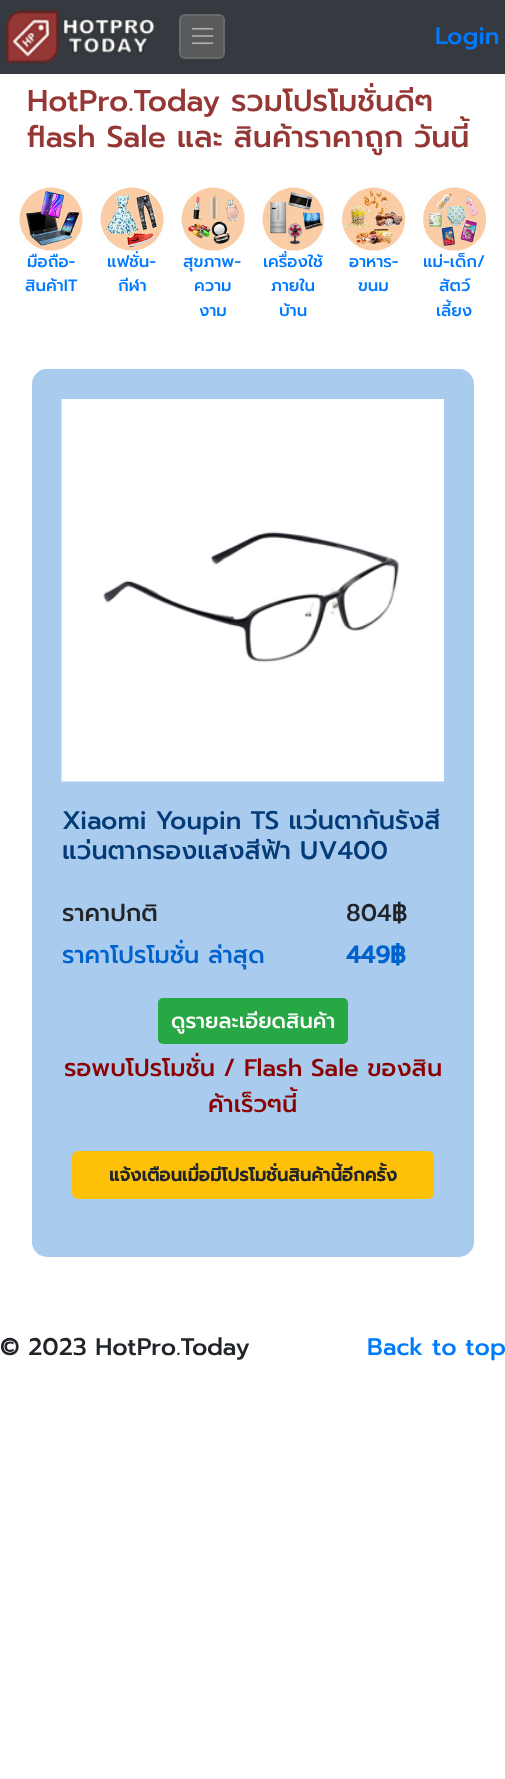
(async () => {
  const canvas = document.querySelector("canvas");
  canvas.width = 505;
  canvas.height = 1779;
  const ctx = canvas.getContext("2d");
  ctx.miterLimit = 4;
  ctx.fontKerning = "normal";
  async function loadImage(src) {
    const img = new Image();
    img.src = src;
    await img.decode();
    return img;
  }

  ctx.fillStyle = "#ffffff";
  ctx.fillRect(0, 0, 505, 1779);
  ctx.fillStyle = "#343a40";
  ctx.fillRect(0, 0, 505, 74);
  ctx.drawImage(await loadImage("img/1.png"), 6, 10, 149, 53);
  ctx.fillStyle = "#585a5c";
  ctx.beginPath();
  ctx.roundRect(179, 14, 46, 45, 6);
  ctx.fill();
  ctx.beginPath();
  ctx.roundRect(180, 15, 44, 43, 5);
  ctx.strokeStyle = "rgba(255, 255, 255, 0.1)";
  ctx.lineWidth = 2;
  ctx.stroke();
  ctx.drawImage(await loadImage("img/2.png"), 191, 27, 23, 18);
  ctx.drawImage(await loadImage("img/3.png"), 19, 187, 64, 64);
  ctx.drawImage(await loadImage("img/4.png"), 100, 187, 64, 64);
  ctx.drawImage(await loadImage("img/5.png"), 181, 187, 64, 64);
  ctx.drawImage(await loadImage("img/6.png"), 262, 187, 62, 64);
  ctx.drawImage(await loadImage("img/7.png"), 342, 187, 63, 64);
  ctx.drawImage(await loadImage("img/8.png"), 423, 187, 63, 64);
  ctx.fillStyle = "#a8cbee";
  ctx.beginPath();
  ctx.roundRect(32, 369, 442, 888, 15);
  ctx.fill();
  ctx.drawImage(await loadImage("img/9.png"), 61, 399, 383, 383);
  ctx.fillStyle = "#28a745";
  ctx.beginPath();
  ctx.roundRect(159, 999, 188, 44, 4);
  ctx.fill();
  ctx.strokeStyle = "#28a745";
  ctx.stroke();
  ctx.fillStyle = "#ffc107";
  ctx.beginPath();
  ctx.roundRect(73, 1152, 360, 46, 5);
  ctx.fill();
  ctx.strokeStyle = "#ffc107";
  ctx.stroke();
  ctx.font = "500 24px Prompt";
  ctx.fillStyle = "#007bff";
  ctx.fillText("Login", 435, 44);
  ctx.font = "500 30px Prompt";
  ctx.fillStyle = "#953735";
  ctx.fillText("HotPro.Today รวมโปรโมชั่นดีๆ", 27, 111);
  ctx.fillText("flash Sale และ สินค้าราคาถูก วันนี้", 27, 147);
  ctx.font = "500 16.5px Prompt";
  ctx.fillStyle = "#007bff";
  for (const [text, x, y] of [
    ["มือถือ-", 27, 267],
    ["สินค้าIT", 25, 291],
    ["แฟชั่น-", 107, 267],
    ["กีฬา", 118, 291],
    ["สุขภาพ-", 183, 267],
    ["ความ", 194, 291],
    ["งาม", 199, 316],
    ["เครื่องใช้", 263, 267],
    ["ภายใน", 271, 291],
    ["บ้าน", 279, 316],
    ["อาหาร-", 349, 267],
    ["ขนม", 358, 291],
    ["แม่-เด็ก/", 423, 267],
    ["สัตว์", 439, 291],
    ["เลี้ยง", 436, 316],
  ]) {
    ctx.fillText(text, x, y);
  }
  ctx.font = "500 25.5px Prompt";
  ctx.fillStyle = "#023b78";
  ctx.fillText("Xiaomi Youpin TS แว่นตากันรังสี", 62, 829);
  ctx.fillText("แว่นตากรองแสงสีฟ้า UV400", 62, 859);
  ctx.font = "500 24px Prompt";
  ctx.fillStyle = "#212529";
  ctx.fillText("ราคาปกติ", 62, 921);
  ctx.fillText("804฿", 346, 921);
  ctx.fillStyle = "#0062cc";
  ctx.fillText("ราคาโปรโมชั่น ล่าสุด", 62, 963);
  ctx.font = "bold 24px Prompt";
  ctx.fillText("449฿", 346, 963);
  ctx.font = "500 21px Prompt";
  ctx.fillStyle = "#ffffff";
  ctx.fillText("ดูรายละเอียดสินค้า", 171, 1028);
  ctx.font = "500 24px Prompt";
  ctx.fillStyle = "#8b0000";
  ctx.fillText("รอพบโปรโมชั่น / Flash Sale ของสิน", 64, 1076);
  ctx.fillText("ค้าเร็วๆนี้", 208, 1112);
  ctx.font = "bold 18px Prompt";
  ctx.fillStyle = "#212529";
  ctx.fillText("แจ้งเตือนเมื่อมีโปรโมชั่นสินค้านี้อีกครั้ง", 109, 1181);
  ctx.font = "500 24px Prompt";
  ctx.fillText("© 2023 HotPro.Today", 0, 1355);
  ctx.fillStyle = "#007bff";
  ctx.fillText("Back to top", 367, 1355);
})();
